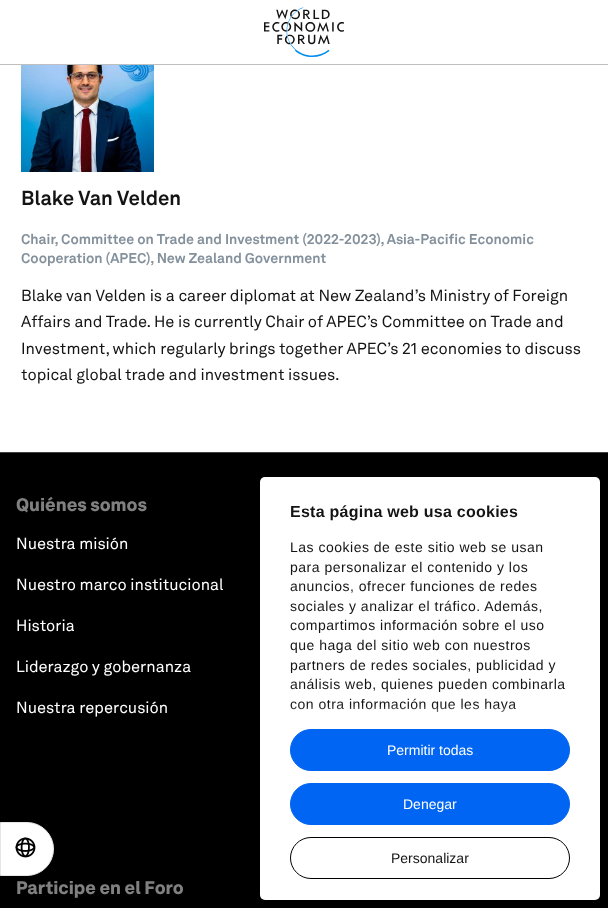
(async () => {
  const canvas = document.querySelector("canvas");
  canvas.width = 608;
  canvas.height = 908;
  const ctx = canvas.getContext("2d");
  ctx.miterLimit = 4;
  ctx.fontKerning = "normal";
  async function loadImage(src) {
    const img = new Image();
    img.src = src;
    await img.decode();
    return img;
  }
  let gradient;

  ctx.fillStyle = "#ffffff";
  ctx.fillRect(0, 0, 608, 908);
  ctx.fillStyle = "#bfbfbf";
  ctx.fillRect(0, 64, 608, 1);
  ctx.drawImage(await loadImage("img/1.png"), 264, 7, 80, 50);
  ctx.drawImage(await loadImage("img/2.png"), 21, 65, 133, 107);
  ctx.fillStyle = "#000000";
  ctx.fillRect(0, 453, 608, 455);
  ctx.fillStyle = "#404040";
  ctx.fillRect(0, 452, 608, 1);
  ctx.fillStyle = "#ffffff";
  ctx.beginPath();
  ctx.roundRect(0.5, 822.5, 53, 53, [0, 26.5, 26.5, 0]);
  ctx.fill();
  ctx.strokeStyle = "#e6e6e6";
  ctx.stroke();
  ctx.drawImage(await loadImage("img/3.png"), 15, 837, 21, 21);
  ctx.beginPath();
  ctx.roundRect(260, 477, 340, 423, 5);
  ctx.fill();
  ctx.fillStyle = "#0065f2";
  ctx.beginPath();
  ctx.roundRect(290.5, 729.5, 279, 41, 20.5);
  ctx.fill();
  ctx.strokeStyle = "#0065f2";
  ctx.stroke();
  ctx.beginPath();
  ctx.roundRect(290.5, 783.5, 279, 41, 20.5);
  ctx.fill();
  ctx.stroke();
  ctx.beginPath();
  ctx.roundRect(290.5, 837.5, 279, 41, 20.5);
  ctx.strokeStyle = "#000000";
  ctx.stroke();
  ctx.font = "bold 20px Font";
  ctx.fillStyle = "#141414";
  ctx.fillText("Blake Van Velden", 21, 205);
  ctx.font = "bold 14px Font";
  ctx.fillStyle = "#84919c";
  ctx.fillText("Chair, Committee on Trade and Investment (2022-2023), Asia-Pacific Economic", 21, 244);
  ctx.fillText("Cooperation (APEC), New Zealand Government", 21, 263);
  ctx.font = "16px Font";
  ctx.fillStyle = "#141414";
  for (const [text, x, y] of [
    ["Blake van Velden is a career diplomat at New Zealand’s Ministry of Foreign", 21, 301],
    ["Affairs and Trade. He is currently Chair of APEC’s Committee on Trade and", 21, 327],
    ["Investment, which regularly brings together APEC’s 21 economies to discuss", 21, 354],
    ["topical global trade and investment issues.", 21, 380],
  ]) {
    ctx.fillText(text, x, y);
  }
  ctx.font = "900 18px Font";
  ctx.fillStyle = "#808080";
  ctx.fillText("Quiénes somos", 16, 511);
  ctx.font = "16px Font";
  ctx.fillStyle = "#ffffff";
  for (const [text, x, y] of [
    ["Nuestra misión", 16, 549],
    ["Nuestro marco institucional", 16, 590],
    ["Historia", 16, 631],
    ["Liderazgo y gobernanza", 16, 672],
    ["Nuestra repercusión", 16, 713],
  ]) {
    ctx.fillText(text, x, y);
  }
  ctx.font = "900 18px Font";
  ctx.fillStyle = "#808080";
  ctx.fillText("Participe en el Foro", 16, 894);
  ctx.letterSpacing = "0.25px";
  ctx.font = "bold 16px Liberation Sans";
  ctx.fillStyle = "#141414";
  ctx.fillText("Esta página web usa cookies", 290, 517);
  ctx.letterSpacing = "0.5px";
  ctx.font = "14px Liberation Sans";
  for (const [text, x, y] of [
    ["Las cookies de este sitio web se usan", 290, 552],
    ["para personalizar el contenido y los", 290, 572],
    ["anuncios, ofrecer funciones de redes", 290, 591],
    ["sociales y analizar el tráfico. Además,", 290, 611],
    ["compartimos información sobre el uso", 290, 630],
    ["que haga del sitio web con nuestros", 290, 650],
    ["partners de redes sociales, publicidad y", 290, 670],
    ["análisis web, quienes pueden combinarla", 290, 689],
    ["con otra información que les haya", 290, 709],
  ]) {
    ctx.fillText(text, x, y);
  }
  gradient = ctx.createLinearGradient(424, 729, 424, 706);
  gradient.addColorStop(0, "#ffffff");
  gradient.addColorStop(0.5, "rgba(255, 255, 255, 0.8)");
  gradient.addColorStop(1, "rgba(255, 255, 255, 0)");
  ctx.fillStyle = gradient;
  ctx.fillRect(291, 706, 226, 6);
  ctx.letterSpacing = "0px";
  ctx.fillStyle = "#ffffff";
  ctx.fillText("Permitir todas", 387, 755);
  ctx.fillText("Denegar", 403, 809);
  ctx.fillStyle = "#141414";
  ctx.fillText("Personalizar", 391, 863);
})();
